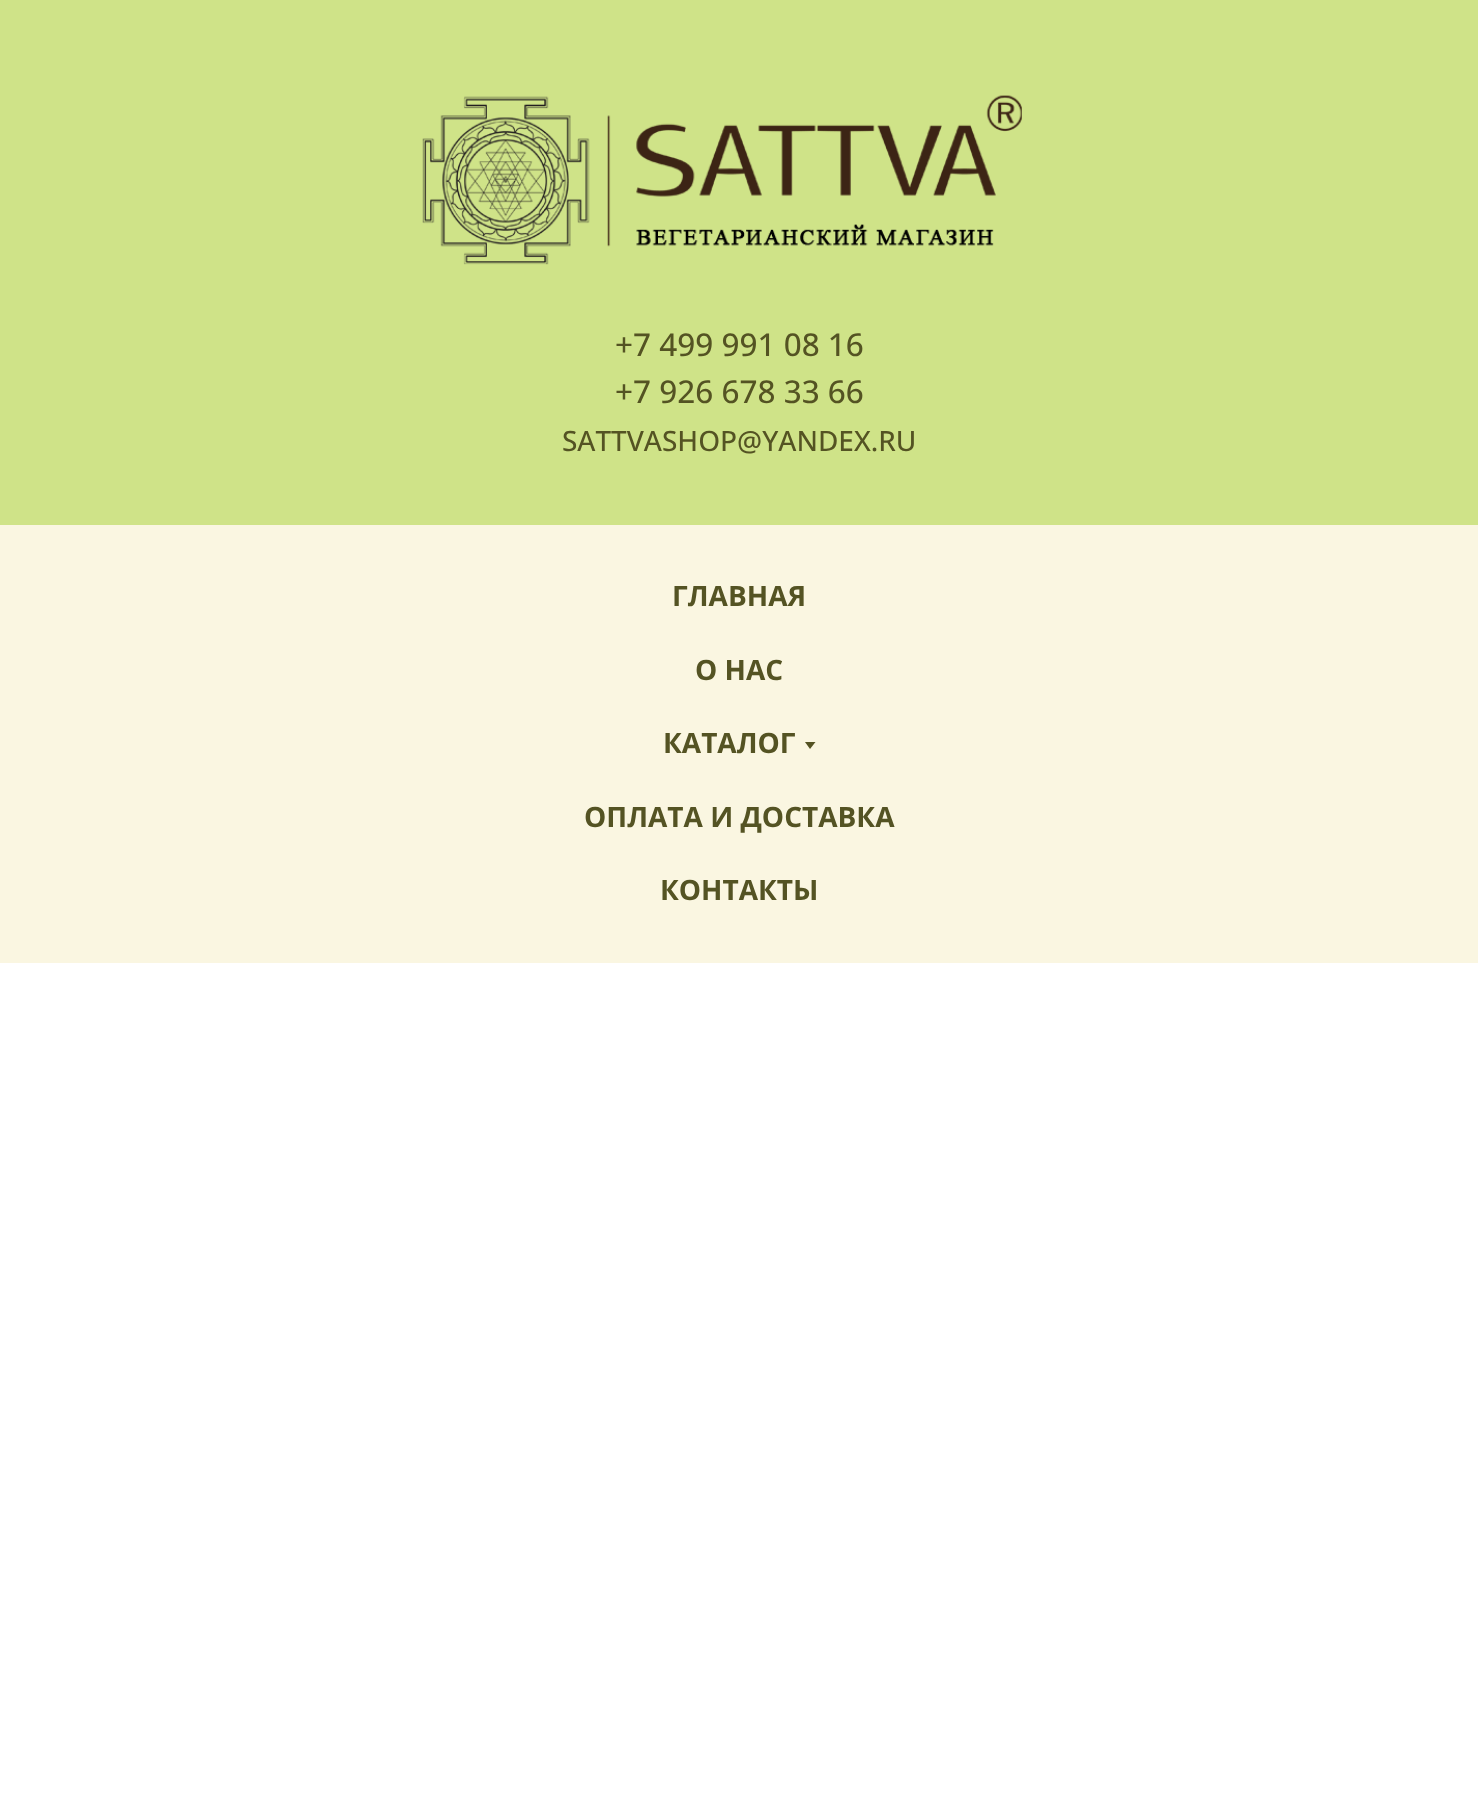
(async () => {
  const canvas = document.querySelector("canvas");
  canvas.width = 1478;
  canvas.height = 1803;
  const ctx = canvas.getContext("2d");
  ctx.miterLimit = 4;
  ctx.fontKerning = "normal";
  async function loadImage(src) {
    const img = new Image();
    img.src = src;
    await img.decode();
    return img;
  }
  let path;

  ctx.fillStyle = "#ffffff";
  ctx.fillRect(0, 0, 1478, 1803);
  ctx.fillStyle = "#cfe388";
  ctx.fillRect(0, 0, 1478, 525);
  ctx.drawImage(await loadImage("img/1.png"), 422, 95, 600, 170);
  ctx.fillStyle = "#faf6e1";
  ctx.fillRect(0, 525, 1478, 438);
  ctx.fillStyle = "#545323";
  path = new Path2D("M805 742H815.5L810 749Z");
  ctx.fill(path);
  ctx.font = "500 31.5px Open Sans";
  ctx.fillText("+7 499 991 08 16", 615, 356);
  ctx.fillText("+7 926 678 33 66", 615, 403);
  ctx.font = "500 28px Open Sans";
  ctx.fillText("SATTVASHOP@YANDEX.RU", 562, 451);
  ctx.font = "bold 28px Open Sans";
  for (const [text, x, y] of [
    ["ГЛАВНАЯ", 672, 606],
    ["О НАС", 695, 680],
    ["КАТАЛОГ", 663, 753],
    ["ОПЛАТА И ДОСТАВКА", 584, 827],
    ["КОНТАКТЫ", 660, 900],
  ]) {
    ctx.fillText(text, x, y);
  }
})();
